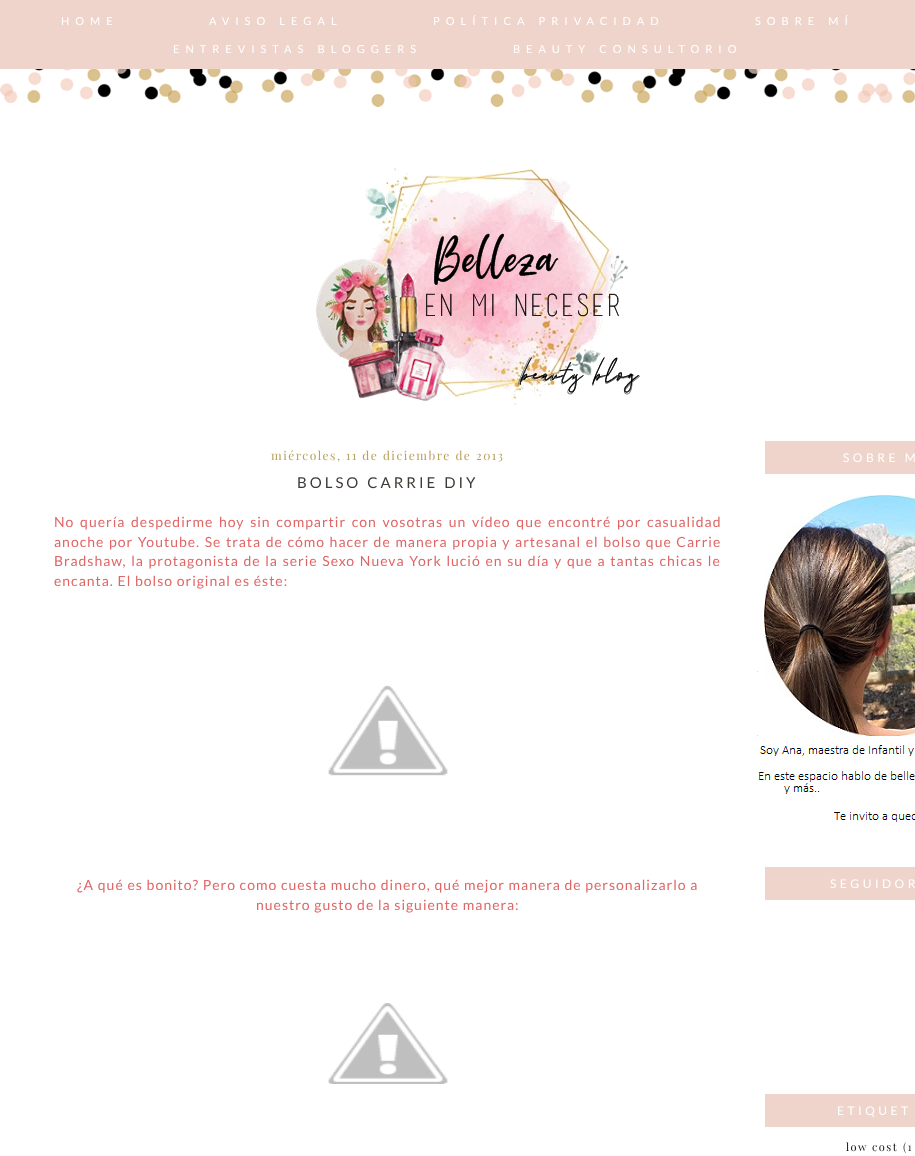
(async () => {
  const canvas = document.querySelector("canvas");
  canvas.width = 915;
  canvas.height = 1156;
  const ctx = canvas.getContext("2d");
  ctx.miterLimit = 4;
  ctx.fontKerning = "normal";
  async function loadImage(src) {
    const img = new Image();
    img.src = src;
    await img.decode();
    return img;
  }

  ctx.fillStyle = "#ffffff";
  ctx.fillRect(0, 0, 915, 1156);
  ctx.fillStyle = "#efd4cc";
  ctx.fillRect(0, 0, 915, 69);
  ctx.drawImage(await loadImage("img/1.png"), 316, 168, 324, 237);
  ctx.drawImage(await loadImage("img/2.png"), 328, 685, 120, 91);
  ctx.drawImage(await loadImage("img/3.png"), 328, 1003, 120, 81);
  ctx.fillRect(765, 441, 150, 33);
  ctx.drawImage(await loadImage("img/4.png"), 757, 495, 158, 327);
  ctx.fillRect(765, 867, 150, 33);
  ctx.fillRect(765, 1094, 150, 33);
  ctx.drawImage(await loadImage("img/5.png"), 0, 69, 915, 38);
  ctx.letterSpacing = "6px";
  ctx.font = "11px Lato";
  ctx.fillStyle = "#ffffff";
  for (const [text, x, y] of [
    ["HOME", 61, 25],
    ["AVISO LEGAL", 209, 25],
    ["POLÍTICA PRIVACIDAD", 433, 25],
    ["SOBRE MÍ", 755, 25],
    ["ENTREVISTAS BLOGGERS", 173, 53],
    ["BEAUTY CONSULTORIO", 513, 53],
  ]) {
    ctx.fillText(text, x, y);
  }
  ctx.letterSpacing = "1.5px";
  ctx.font = "12px Playfair Display";
  ctx.fillStyle = "#baa05b";
  ctx.fillText("miércoles, 11 de diciembre de 2013", 271, 460);
  ctx.letterSpacing = "3px";
  ctx.font = "15px Lato";
  ctx.fillStyle = "#3f3a36";
  ctx.fillText("BOLSO CARRIE DIY", 297, 488);
  ctx.letterSpacing = "1px";
  ctx.wordSpacing = "2px";
  ctx.font = "14px Lato";
  ctx.fillStyle = "#e06666";
  ctx.fillText("No quería despedirme hoy sin compartir con vosotras un vídeo que encontré por casualidad", 54, 527);
  ctx.wordSpacing = "0.9px";
  ctx.fillText("anoche por Youtube. Se trata de cómo hacer de manera propia y artesanal el bolso que Carrie", 54, 547);
  ctx.wordSpacing = "1px";
  ctx.fillText("Bradshaw, la protagonista de la serie Sexo Nueva York lució en su día y que a tantas chicas le", 54, 566);
  ctx.wordSpacing = "0px";
  for (const [text, x, y] of [
    ["encanta. El bolso original es éste:", 54, 586],
    ["¿A qué es bonito? Pero como cuesta mucho dinero, qué mejor manera de personalizarlo a", 77, 890],
    ["nuestro gusto de la siguiente manera:", 256, 910],
  ]) {
    ctx.fillText(text, x, y);
  }
  ctx.letterSpacing = "3.5px";
  ctx.font = "12px Lato";
  ctx.fillStyle = "#ffffff";
  for (const [text, x, y] of [
    ["SOBRE M", 843, 462],
    ["SEGUIDOR", 830, 888],
    ["ETIQUET", 837, 1115],
  ]) {
    ctx.fillText(text, x, y);
  }
  ctx.letterSpacing = "1.5px";
  ctx.font = "11px Playfair Display";
  ctx.fillStyle = "#111110";
  ctx.fillText("low cost", 846, 1151);
  ctx.fillStyle = "#3f3a36";
  ctx.fillText("(1", 903, 1151);
})();
